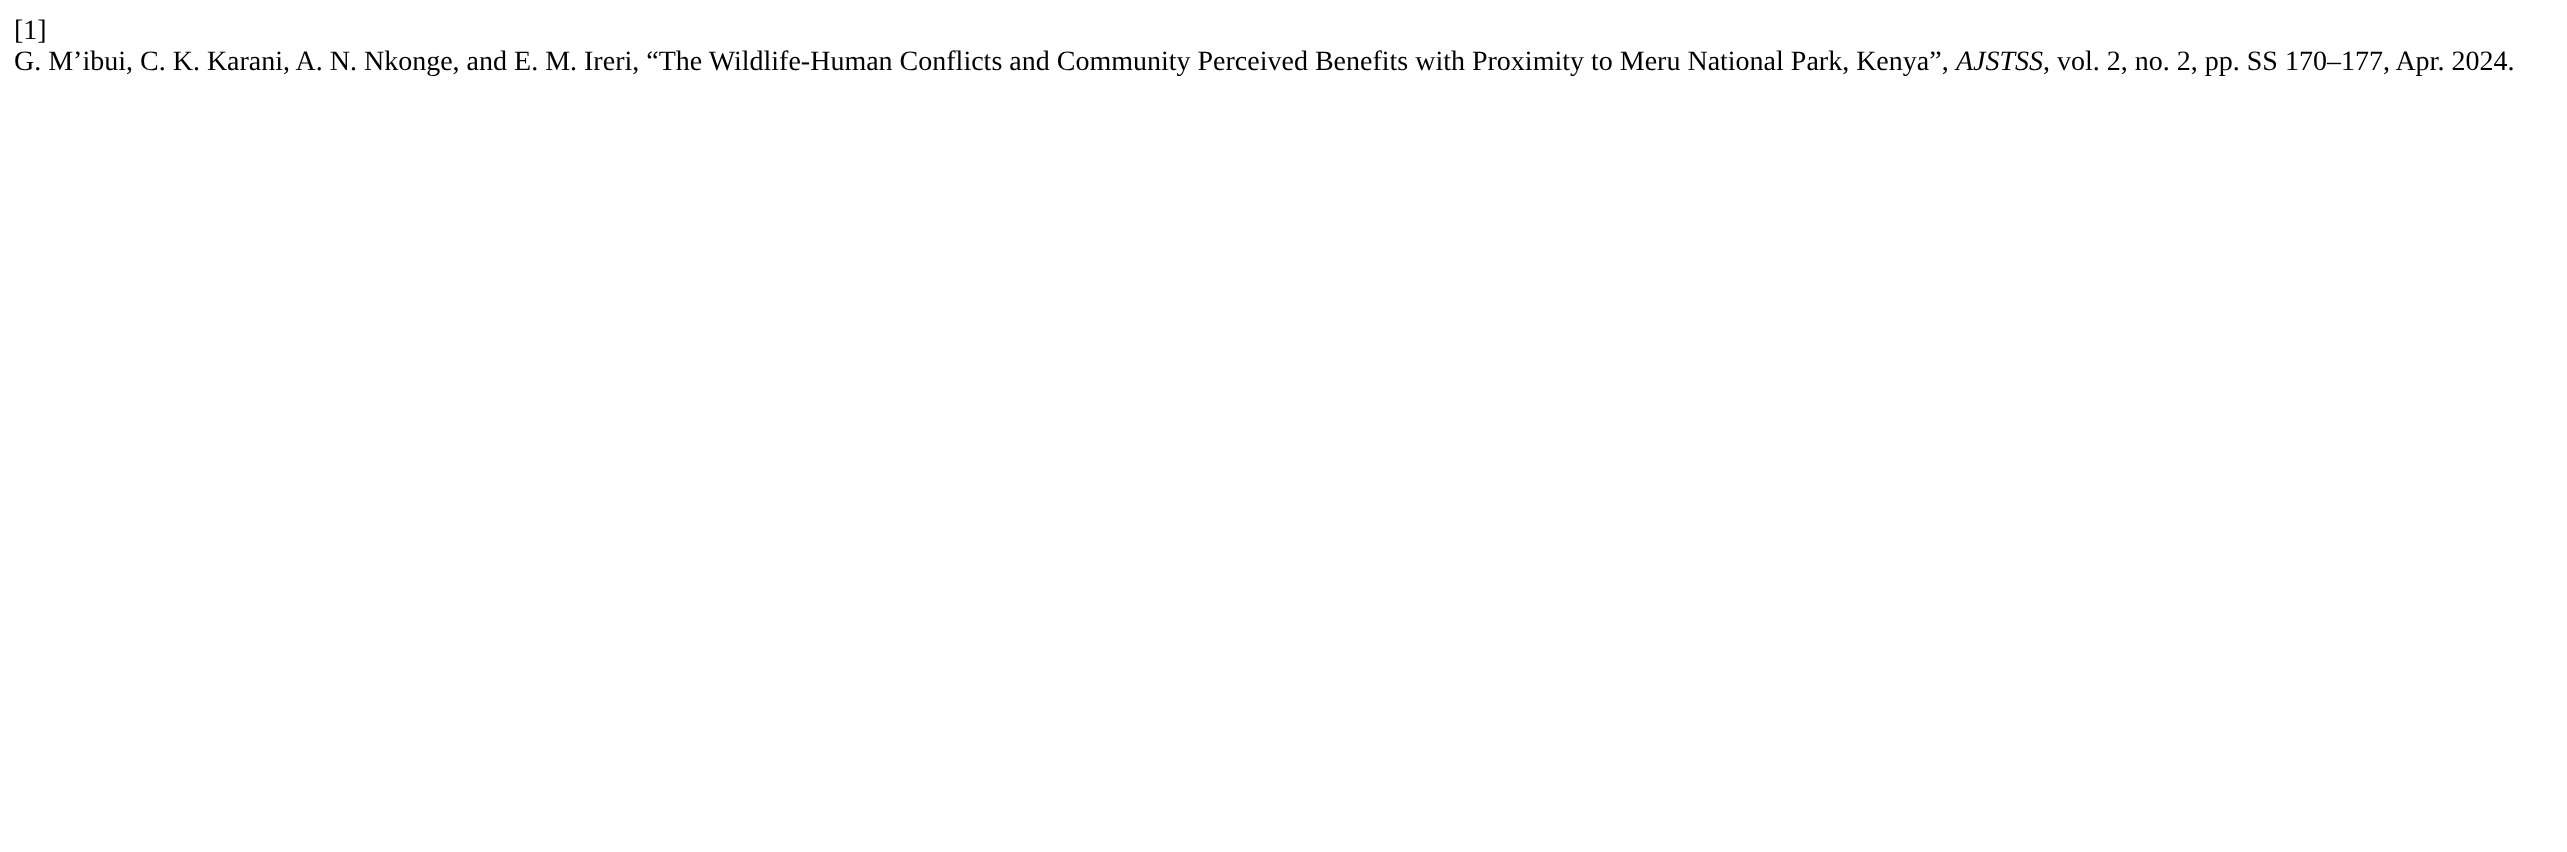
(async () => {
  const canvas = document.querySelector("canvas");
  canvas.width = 2567;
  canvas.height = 852;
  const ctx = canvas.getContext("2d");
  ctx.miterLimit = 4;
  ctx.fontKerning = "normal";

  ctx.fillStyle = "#ffffff";
  ctx.fillRect(0, 0, 2567, 852);
  ctx.font = "28px Liberation Serif";
  ctx.fillStyle = "#000000";
  ctx.fillText("[1]", 14, 39);
  ctx.fillText("G. M’ibui, C. K. Karani, A. N. Nkonge, and E. M. Ireri, “The Wildlife-Human Conflicts and Community Perceived Benefits with Proximity to Meru National Park, Kenya”,", 14, 70);
  ctx.font = "italic 28px Liberation Serif";
  ctx.fillText("AJSTSS", 1956, 70);
  ctx.font = "28px Liberation Serif";
  ctx.fillText(", vol. 2, no. 2, pp. SS 170–177, Apr. 2024.", 2043, 70);
})();
